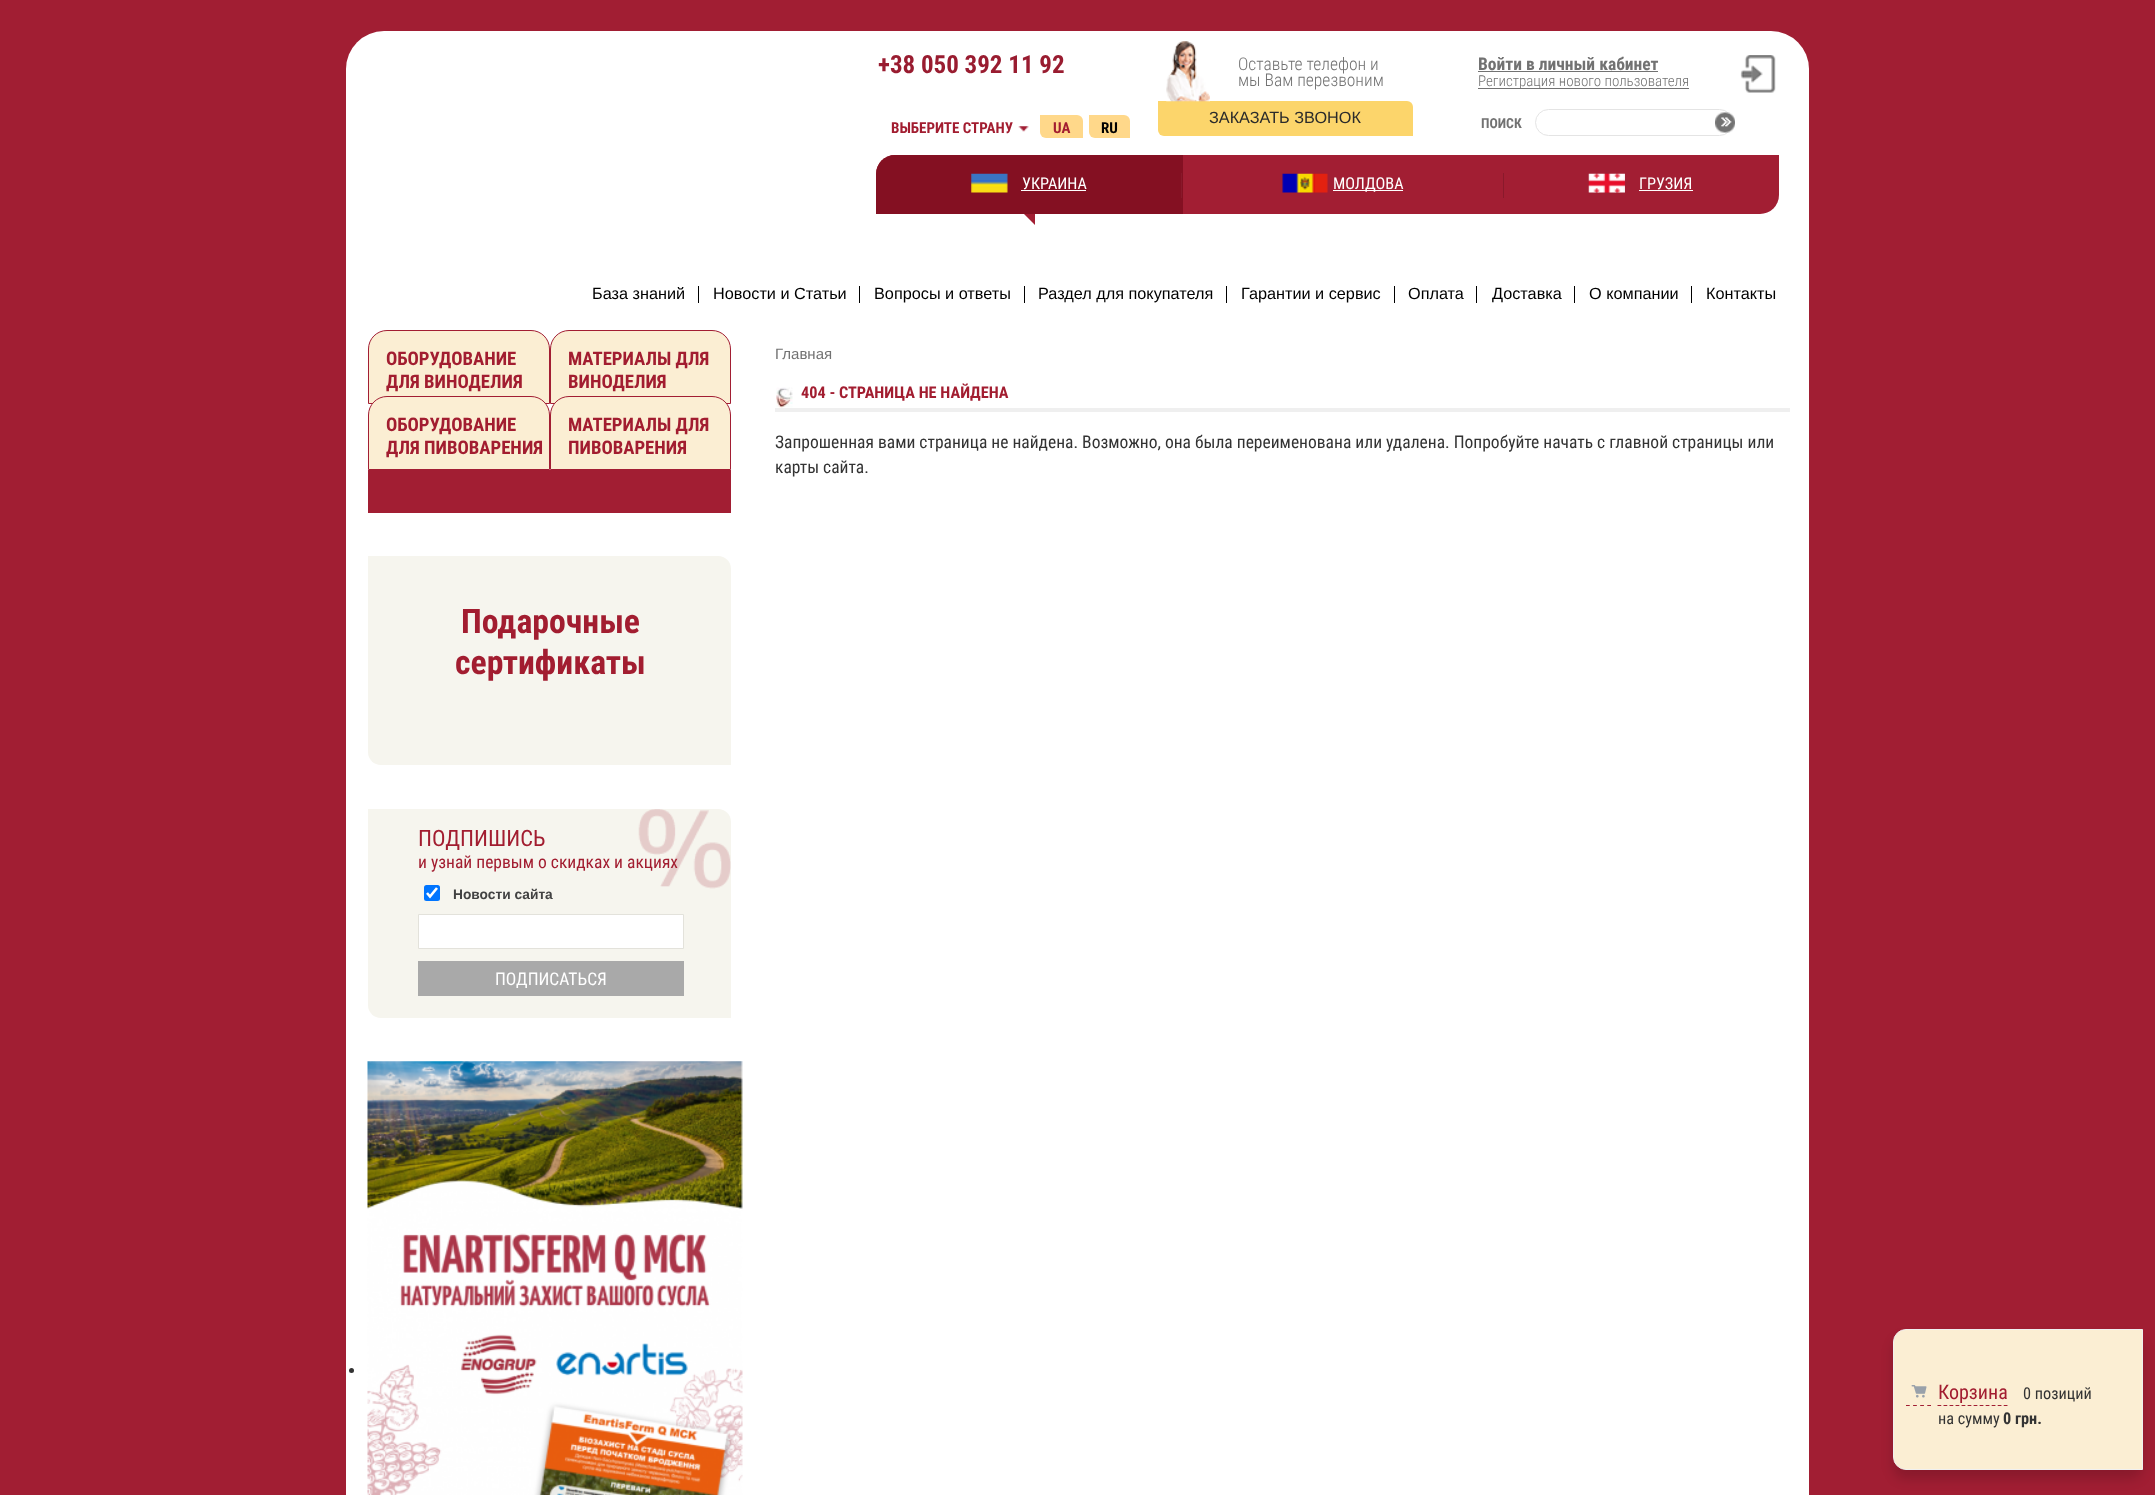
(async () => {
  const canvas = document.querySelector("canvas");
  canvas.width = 2155;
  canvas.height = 1495;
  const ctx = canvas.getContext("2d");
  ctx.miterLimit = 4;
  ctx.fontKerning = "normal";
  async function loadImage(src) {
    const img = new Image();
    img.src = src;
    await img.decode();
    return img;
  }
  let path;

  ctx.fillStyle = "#a11e33";
  ctx.fillRect(0, 0, 2155, 1495);
  ctx.fillStyle = "#ffffff";
  ctx.beginPath();
  ctx.roundRect(346, 31, 1463, 229, [38, 38, 0, 0]);
  ctx.fill();
  ctx.fillStyle = "#fcd56b";
  ctx.beginPath();
  ctx.roundRect(1158, 101, 255, 35, [0, 6, 0, 6]);
  ctx.fill();
  ctx.drawImage(await loadImage("img/1.png"), 1166, 41, 44, 61);
  ctx.drawImage(await loadImage("img/2.png"), 1740, 55, 36, 38);
  ctx.fillStyle = "#727272";
  ctx.fillRect(1478, 71, 180, 1);
  ctx.fillRect(1478, 88, 211, 1);
  ctx.beginPath();
  ctx.roundRect(1535.5, 109.5, 197, 26, 13);
  ctx.strokeStyle = "#e4e4e4";
  ctx.stroke();
  ctx.drawImage(await loadImage("img/3.png"), 1715, 112, 20, 21);
  ctx.drawImage(await loadImage("img/4.png"), 1018, 126, 11, 6);
  ctx.fillStyle = "#ffd88a";
  ctx.beginPath();
  ctx.roundRect(1040, 115, 43, 23, [0, 6, 0, 6]);
  ctx.fill();
  ctx.beginPath();
  ctx.roundRect(1089, 115, 41, 23, [0, 6, 0, 6]);
  ctx.fill();
  ctx.fillStyle = "#a21e33";
  ctx.beginPath();
  ctx.roundRect(876, 155, 903, 59, [19, 0, 19, 0]);
  ctx.fill();
  ctx.fillStyle = "#841022";
  ctx.beginPath();
  ctx.roundRect(876, 155, 307, 59, [19, 0, 0, 0]);
  ctx.fill();
  ctx.drawImage(await loadImage("img/5.png"), 971, 173, 37, 20);
  ctx.fillStyle = "#ffffff";
  ctx.fillRect(1021, 190, 65, 1);
  ctx.fillStyle = "#89192b";
  ctx.fillRect(1181, 173, 1, 25);
  ctx.fillStyle = "#a21e33";
  path = new Path2D("M1024 214H1035V225Z");
  ctx.fill(path);
  ctx.drawImage(await loadImage("img/6.png"), 1282, 173, 46, 20);
  ctx.fillStyle = "#ffffff";
  ctx.fillRect(1333, 190, 70, 1);
  ctx.fillStyle = "#89192b";
  ctx.fillRect(1503, 173, 1, 25);
  ctx.drawImage(await loadImage("img/7.png"), 1588, 173, 37, 20);
  for (const [x, y, w, h, color] of [
    [1639, 190, 54, 1, "#ffffff"],
    [346, 260, 1463, 1235, "#ffffff"],
    [698, 286, 1, 17, "#000000"],
    [859, 286, 1, 17, "#000000"],
    [1024, 286, 1, 17, "#000000"],
    [1226, 286, 1, 17, "#000000"],
    [1394, 286, 1, 17, "#000000"],
    [1476, 286, 1, 17, "#000000"],
    [1574, 286, 1, 17, "#000000"],
    [1691, 286, 1, 17, "#000000"],
  ]) {
    ctx.fillStyle = color;
    ctx.fillRect(x, y, w, h);
  }
  ctx.fillStyle = "#fbeed3";
  ctx.beginPath();
  ctx.roundRect(368.5, 330.5, 181, 73, [18.5, 18.5, 0, 0]);
  ctx.fill();
  ctx.strokeStyle = "#a21e33";
  ctx.stroke();
  ctx.beginPath();
  ctx.roundRect(550.5, 330.5, 180, 73, [18.5, 18.5, 0, 0]);
  ctx.fill();
  ctx.stroke();
  ctx.beginPath();
  ctx.roundRect(368.5, 396.5, 181, 73, [18.5, 18.5, 0, 0]);
  ctx.fill();
  ctx.stroke();
  ctx.beginPath();
  ctx.roundRect(550.5, 396.5, 180, 73, [18.5, 18.5, 0, 0]);
  ctx.fill();
  ctx.stroke();
  ctx.fillStyle = "#a21e33";
  ctx.fillRect(368, 470, 363, 43);
  ctx.fillStyle = "#f6f5ee";
  ctx.beginPath();
  ctx.roundRect(368, 556, 363, 209, [0, 13, 0, 13]);
  ctx.fill();
  ctx.beginPath();
  ctx.roundRect(368, 809, 363, 209, [0, 13, 0, 13]);
  ctx.fill();
  ctx.drawImage(await loadImage("img/8.png"), 638, 809, 93, 80);
  ctx.fillStyle = "#0075ff";
  ctx.beginPath();
  ctx.roundRect(424, 885, 16, 16, 2.5);
  ctx.fill();
  path = new Path2D("M427 893L430 896.5L437 888");
  ctx.strokeStyle = "#ffffff";
  ctx.lineWidth = 2.6;
  ctx.stroke(path);
  ctx.fillStyle = "#ffffff";
  ctx.beginPath();
  ctx.rect(418.5, 914.5, 265, 34);
  ctx.fill();
  ctx.strokeStyle = "#e3e2db";
  ctx.lineWidth = 1;
  ctx.stroke();
  ctx.fillStyle = "#a9a9a9";
  ctx.fillRect(418, 961, 266, 35);
  ctx.fillStyle = "#333333";
  ctx.beginPath();
  ctx.arc(351.5, 1370.5, 2.5, 0, Math.PI * 2);
  ctx.fill();
  ctx.drawImage(await loadImage("img/9.png"), 367, 1061, 376, 434);
  ctx.drawImage(await loadImage("img/10.png"), 776, 387, 17, 21);
  ctx.fillStyle = "#efefef";
  ctx.fillRect(775, 408, 1015, 4);
  ctx.fillStyle = "rgba(0, 0, 0, 0.15)";
  ctx.filter = "blur(6px)";
  ctx.beginPath();
  ctx.roundRect(1893, 1338, 250, 141, 13);
  ctx.fill();
  ctx.filter = "none";
  ctx.fillStyle = "#fbeed3";
  ctx.beginPath();
  ctx.roundRect(1893.5, 1329.5, 249, 140, [12.5, 0, 0, 12.5]);
  ctx.fill();
  ctx.strokeStyle = "#f0f0f0";
  ctx.stroke();
  path = new Path2D("M1937.5 1405.5H2007.5");
  ctx.strokeStyle = "#a11e33";
  ctx.lineWidth = 1.2;
  ctx.setLineDash([3.75, 2.27]);
  ctx.stroke(path);
  path = new Path2D("M1906 1405.5H1931");
  ctx.setLineDash([3.75, 3.34]);
  ctx.stroke(path);
  ctx.drawImage(await loadImage("img/11.png"), 1911, 1385, 16, 13);
  ctx.font = "bold 25px Roboto Condensed";
  ctx.fillStyle = "#991c30";
  ctx.fillText("+38 050 392 11 92", 878, 73);
  ctx.font = "300 17.5px Roboto Condensed";
  ctx.fillStyle = "#727272";
  ctx.fillText("Оставьте телефон и", 1238, 70);
  ctx.fillText("мы Вам перезвоним", 1238, 86);
  ctx.font = "16.25px Liberation Sans";
  ctx.fillStyle = "#2b2b2b";
  ctx.fillText("ЗАКАЗАТЬ ЗВОНОК", 1209, 123);
  ctx.font = "bold 17.5px Roboto Condensed";
  ctx.fillStyle = "#727272";
  ctx.fillText("Войти в личный кабинет", 1478, 70);
  ctx.font = "300 15px Roboto Condensed";
  ctx.fillText("Регистрация нового пользователя", 1478, 86);
  ctx.font = "bold 13.75px Roboto Condensed";
  ctx.fillText("ПОИСК", 1481, 128);
  ctx.font = "bold 15px Roboto Condensed";
  ctx.fillStyle = "#a21d30";
  ctx.fillText("ВЫБЕРИТЕ СТРАНУ", 891, 133);
  ctx.fillText("UA", 1053, 133);
  ctx.fillStyle = "#000000";
  ctx.fillText("RU", 1101, 133);
  ctx.font = "16.25px Roboto Condensed";
  ctx.fillStyle = "#ffffff";
  for (const [text, x, y] of [
    ["УКРАИНА", 1022, 189],
    ["МОЛДОВА", 1333, 189],
    ["ГРУЗИЯ", 1639, 189],
  ]) {
    ctx.fillText(text, x, y);
  }
  ctx.font = "16.25px Liberation Sans";
  ctx.fillStyle = "#000000";
  for (const [text, x, y] of [
    ["База знаний", 592, 299],
    ["Новости и Статьи", 713, 299],
    ["Вопросы и ответы", 874, 299],
    ["Раздел для покупателя", 1038, 299],
    ["Гарантии и сервис", 1241, 299],
    ["Оплата", 1408, 299],
    ["Доставка", 1492, 299],
    ["О компании", 1589, 299],
    ["Контакты", 1706, 299],
  ]) {
    ctx.fillText(text, x, y);
  }
  ctx.font = "bold 18.75px Roboto Condensed";
  ctx.fillStyle = "#a21d30";
  for (const [text, x, y] of [
    ["ОБОРУДОВАНИЕ", 386, 365],
    ["ДЛЯ ВИНОДЕЛИЯ", 386, 388],
    ["МАТЕРИАЛЫ ДЛЯ", 568, 365],
    ["ВИНОДЕЛИЯ", 568, 388],
    ["ОБОРУДОВАНИЕ", 386, 431],
    ["ДЛЯ ПИВОВАРЕНИЯ", 386, 454],
    ["МАТЕРИАЛЫ ДЛЯ", 568, 431],
    ["ПИВОВАРЕНИЯ", 568, 454],
  ]) {
    ctx.fillText(text, x, y);
  }
  ctx.font = "bold 33.75px Roboto Condensed";
  ctx.fillText("Подарочные", 461, 633);
  ctx.fillText("сертификаты", 455, 674);
  ctx.font = "22.5px Roboto Condensed";
  ctx.fillText("ПОДПИШИСЬ", 418, 846);
  ctx.font = "17.5px Roboto Condensed";
  ctx.fillText("и узнай первым о скидках и акциях", 418, 868);
  ctx.font = "bold 13.75px Liberation Sans";
  ctx.fillStyle = "#424242";
  ctx.fillText("Новости сайта", 453, 899);
  ctx.font = "17.5px Roboto Condensed";
  ctx.fillStyle = "#ffffff";
  ctx.fillText("ПОДПИСАТЬСЯ", 495, 985);
  ctx.font = "15px Liberation Sans";
  ctx.fillStyle = "#727272";
  ctx.fillText("Главная", 775, 359);
  ctx.font = "bold 16.25px Roboto Condensed";
  ctx.fillStyle = "#a21d30";
  ctx.fillText("404 - СТРАНИЦА НЕ НАЙДЕНА", 801, 398);
  ctx.font = "17.5px Roboto Condensed";
  ctx.fillStyle = "#333333";
  ctx.fillText("Запрошенная вами страница не найдена. Возможно, она была переименована или удалена. Попробуйте начать с главной страницы или", 775, 448);
  ctx.fillText("карты сайта.", 775, 473);
  ctx.font = "20px Roboto Condensed";
  ctx.fillStyle = "#a21d30";
  ctx.fillText("Корзина", 1938, 1399);
  ctx.font = "16.25px Roboto Condensed";
  ctx.fillStyle = "#333333";
  ctx.fillText("0 позиций", 2023, 1399);
  ctx.fillText("на сумму", 1938, 1424);
  ctx.font = "bold 16.25px Roboto Condensed";
  ctx.fillText("0 грн.", 2003, 1424);
})();
